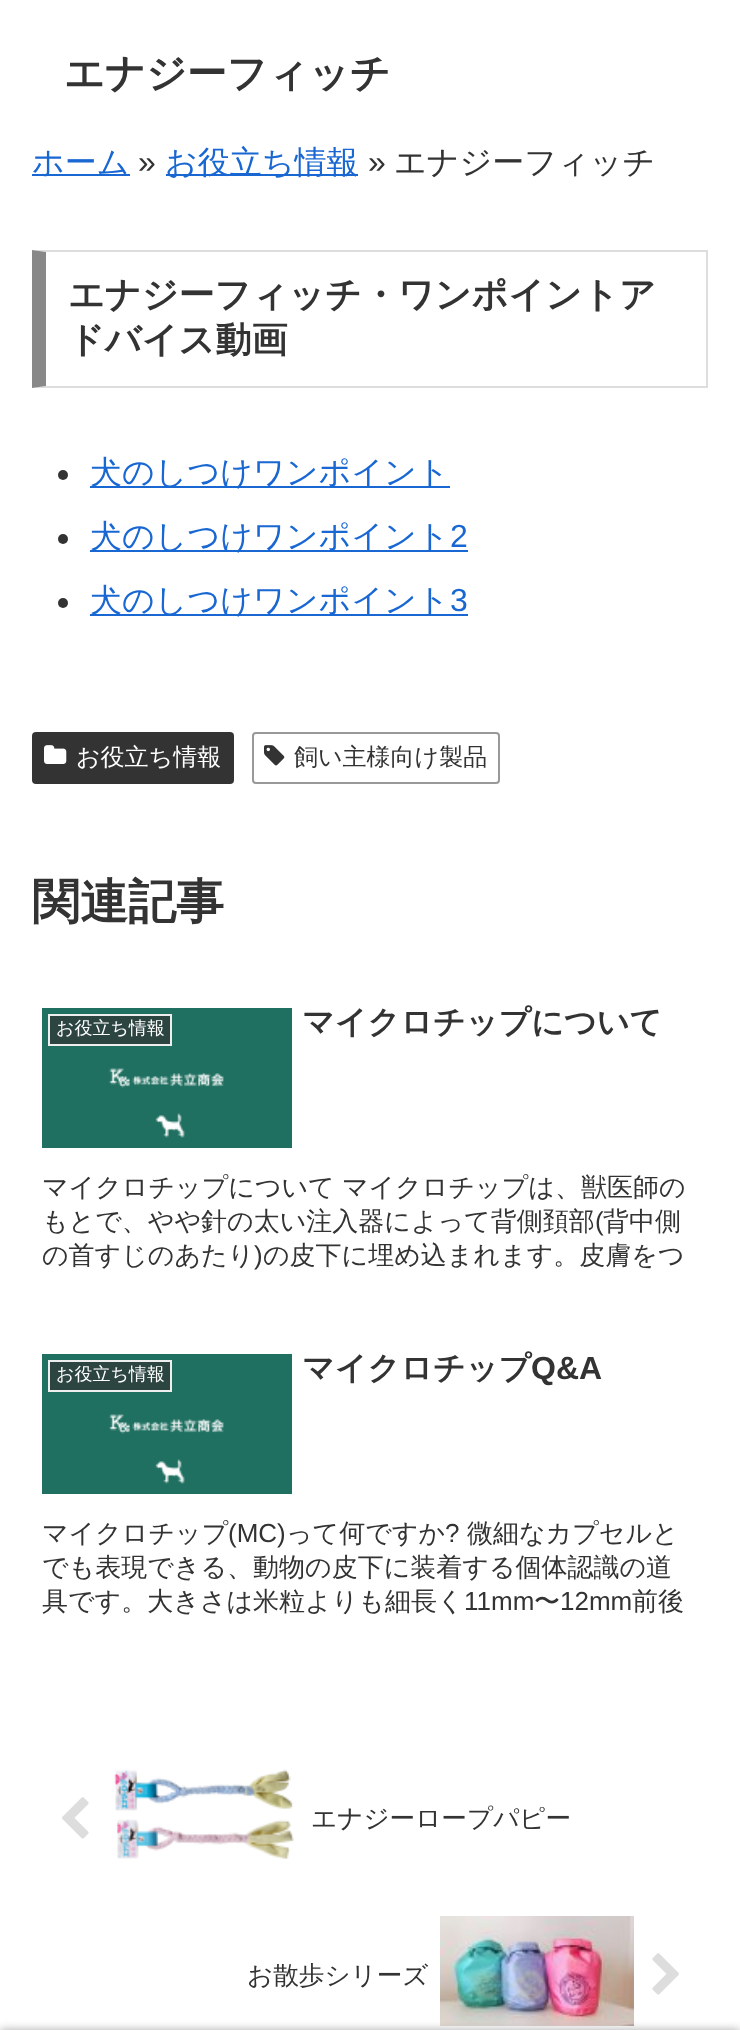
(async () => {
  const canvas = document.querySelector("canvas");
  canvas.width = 740;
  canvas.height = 2030;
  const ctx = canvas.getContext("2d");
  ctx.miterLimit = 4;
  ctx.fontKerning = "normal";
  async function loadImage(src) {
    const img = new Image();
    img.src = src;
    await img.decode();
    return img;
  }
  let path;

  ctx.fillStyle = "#ffffff";
  ctx.fillRect(0, 0, 740, 2030);
  ctx.fillStyle = "#1967d2";
  ctx.fillRect(32, 174, 98, 2);
  ctx.fillRect(166, 174, 192, 2);
  ctx.fillStyle = "#dddddd";
  path = new Path2D("M32 250H708L706 252H46Z");
  ctx.fill(path);
  ctx.fillRect(706, 250, 2, 138);
  path = new Path2D("M708 388H32L46 386H706Z");
  ctx.fill(path);
  ctx.fillStyle = "#888888";
  path = new Path2D("M32 388V250L46 252V386Z");
  ctx.fill(path);
  ctx.fillStyle = "#333333";
  ctx.beginPath();
  ctx.arc(63, 475, 5, 0, Math.PI * 2);
  ctx.fill();
  ctx.fillStyle = "#1967d2";
  ctx.fillRect(90, 486, 360, 2);
  ctx.fillStyle = "#333333";
  ctx.beginPath();
  ctx.arc(63, 539, 5, 0, Math.PI * 2);
  ctx.fill();
  ctx.fillStyle = "#1967d2";
  ctx.fillRect(90, 550, 378, 2);
  ctx.fillStyle = "#333333";
  ctx.beginPath();
  ctx.arc(63, 603, 5, 0, Math.PI * 2);
  ctx.fill();
  ctx.fillStyle = "#1967d2";
  ctx.fillRect(90, 614, 378, 2);
  ctx.fillStyle = "#333333";
  ctx.beginPath();
  ctx.roundRect(32, 732, 202, 52, 4);
  ctx.fill();
  ctx.drawImage(await loadImage("img/1.png"), 44, 745, 23, 19);
  ctx.beginPath();
  ctx.roundRect(253, 733, 246, 50, 3);
  ctx.strokeStyle = "#999999";
  ctx.lineWidth = 2;
  ctx.stroke();
  ctx.drawImage(await loadImage("img/2.png"), 264, 745, 21, 21);
  ctx.drawImage(await loadImage("img/3.png"), 42, 1008, 250, 140);
  ctx.fillStyle = "#2d4541";
  ctx.beginPath();
  ctx.rect(49, 1015, 122, 30);
  ctx.fill();
  ctx.strokeStyle = "#eeeeee";
  ctx.stroke();
  ctx.drawImage(await loadImage("img/3.png"), 42, 1354, 250, 140);
  ctx.beginPath();
  ctx.rect(49, 1361, 122, 30);
  ctx.fill();
  ctx.stroke();
  ctx.drawImage(await loadImage("img/4.png"), 62, 1797, 27, 42);
  ctx.drawImage(await loadImage("img/5.png"), 114, 1769, 180, 90);
  ctx.drawImage(await loadImage("img/6.png"), 440, 1916, 194, 110);
  ctx.drawImage(await loadImage("img/7.png"), 652, 1953, 27, 42);
  ctx.fillStyle = "#a9a9a9";
  ctx.filter = "blur(5px)";
  ctx.beginPath();
  ctx.rect(0, 2030, 740, 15);
  ctx.fill();
  ctx.filter = "none";
  ctx.font = "bold 40px WenQuanYi Zen Hei";
  ctx.fillStyle = "#333333";
  ctx.fillText("エナジーフィッチ", 64, 87);
  ctx.font = "500 32px WenQuanYi Zen Hei";
  ctx.fillStyle = "#1967d2";
  ctx.fillText("ホーム", 32, 173);
  ctx.font = "32px Liberation Sans";
  ctx.fillStyle = "#333333";
  ctx.fillText("»", 138, 173);
  ctx.font = "500 32px WenQuanYi Zen Hei";
  ctx.fillStyle = "#1967d2";
  ctx.fillText("お役立ち情報", 165, 173);
  ctx.font = "32px Liberation Sans";
  ctx.fillStyle = "#333333";
  ctx.fillText("»", 368, 173);
  ctx.font = "500 32px WenQuanYi Zen Hei";
  ctx.fillText("エナジーフィッチ", 394, 173);
  ctx.font = "bold 36px WenQuanYi Zen Hei";
  ctx.fillText("エナジーフィッチ・ワンポイントア", 68, 307);
  ctx.fillText("ドバイス動画", 68, 352);
  ctx.font = "500 32px WenQuanYi Zen Hei";
  ctx.fillStyle = "#1967d2";
  ctx.fillText("犬のしつけワンポイント", 90, 483);
  ctx.fillText("犬のしつけワンポイント", 90, 547);
  ctx.font = "32px Liberation Sans";
  ctx.fillText("2", 450, 547);
  ctx.font = "500 32px WenQuanYi Zen Hei";
  ctx.fillText("犬のしつけワンポイント", 90, 611);
  ctx.font = "32px Liberation Sans";
  ctx.fillText("3", 450, 611);
  ctx.font = "500 24px WenQuanYi Zen Hei";
  ctx.fillStyle = "#ffffff";
  ctx.fillText("お役立ち情報", 76, 765);
  ctx.fillStyle = "#333333";
  ctx.fillText("飼い主様向け製品", 294, 765);
  ctx.font = "bold 48px WenQuanYi Zen Hei";
  ctx.fillText("関連記事", 32, 918);
  ctx.font = "bold 32px WenQuanYi Zen Hei";
  ctx.fillText("マイクロチップについて", 302, 1033);
  ctx.font = "500 26px WenQuanYi Zen Hei";
  for (const [text, x, y] of [
    ["マイクロチップについて", 42, 1196],
    ["マイクロチップは、獣医師の", 342, 1196],
    ["もとで、やや針の太い注入器によって背側頚部", 42, 1230],
  ]) {
    ctx.fillText(text, x, y);
  }
  ctx.font = "26px Liberation Sans";
  ctx.fillText("(", 595, 1230);
  ctx.font = "500 26px WenQuanYi Zen Hei";
  ctx.fillText("背中側", 603, 1230);
  ctx.fillText("の首すじのあたり", 42, 1264);
  ctx.font = "26px Liberation Sans";
  ctx.fillText(")", 254, 1264);
  ctx.font = "500 26px WenQuanYi Zen Hei";
  ctx.fillText("の皮下に埋め込まれます。皮膚をつ", 263, 1264);
  ctx.font = "500 18px WenQuanYi Zen Hei";
  ctx.fillStyle = "#ffffff";
  ctx.fillText("お役立ち情報", 56, 1034);
  ctx.font = "bold 32px WenQuanYi Zen Hei";
  ctx.fillStyle = "#333333";
  ctx.fillText("マイクロチップ", 302, 1379);
  ctx.font = "bold 32px Liberation Sans";
  ctx.fillText("Q&A", 531, 1379);
  ctx.font = "500 26px WenQuanYi Zen Hei";
  ctx.fillText("マイクロチップ", 42, 1542);
  ctx.font = "26px Liberation Sans";
  ctx.fillText("(MC)", 228, 1542);
  ctx.font = "500 26px WenQuanYi Zen Hei";
  ctx.fillText("って何ですか", 286, 1542);
  ctx.font = "26px Liberation Sans";
  ctx.fillText("?", 445, 1542);
  ctx.font = "500 26px WenQuanYi Zen Hei";
  for (const [text, x, y] of [
    ["微細なカプセルと", 467, 1542],
    ["でも表現できる、動物の皮下に装着する個体認識の道", 42, 1576],
    ["具です。大きさは米粒よりも細長く", 42, 1610],
  ]) {
    ctx.fillText(text, x, y);
  }
  ctx.font = "26px Liberation Sans";
  ctx.fillText("11mm", 464, 1610);
  ctx.font = "500 26px WenQuanYi Zen Hei";
  ctx.fillText("〜", 534, 1610);
  ctx.font = "26px Liberation Sans";
  ctx.fillText("12mm", 560, 1610);
  ctx.font = "500 26px WenQuanYi Zen Hei";
  ctx.fillText("前後", 632, 1610);
  ctx.font = "500 18px WenQuanYi Zen Hei";
  ctx.fillStyle = "#ffffff";
  ctx.fillText("お役立ち情報", 56, 1380);
  ctx.font = "500 25.6px WenQuanYi Zen Hei";
  ctx.fillStyle = "#333333";
  ctx.fillText("エナジーロープパピー", 311, 1827);
  ctx.fillText("お散歩シリーズ", 247, 1984);
})();
